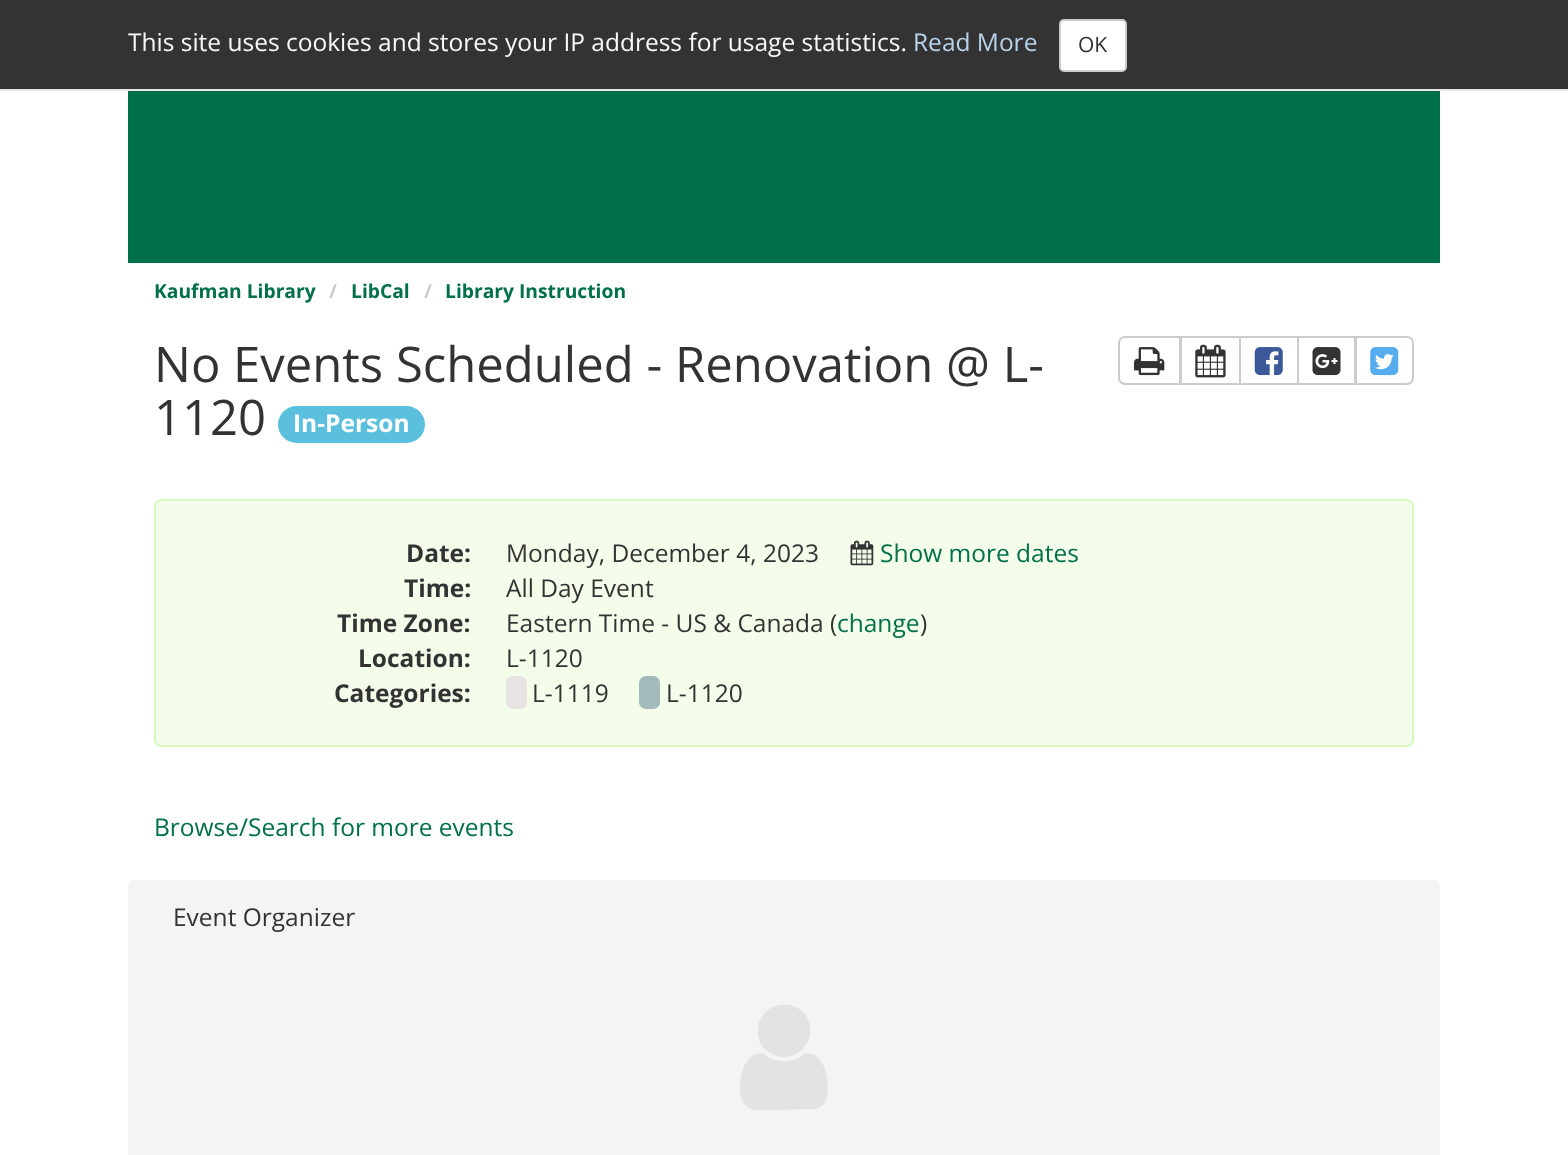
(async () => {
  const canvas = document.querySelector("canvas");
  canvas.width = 1568;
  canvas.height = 1155;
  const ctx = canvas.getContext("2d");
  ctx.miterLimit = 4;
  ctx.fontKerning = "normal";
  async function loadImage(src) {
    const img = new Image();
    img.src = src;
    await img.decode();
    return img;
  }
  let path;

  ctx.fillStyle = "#ffffff";
  ctx.fillRect(0, 0, 1568, 1155);
  ctx.fillStyle = "#333333";
  ctx.fillRect(0, 0, 1568, 89);
  ctx.fillStyle = "#e7e7e7";
  ctx.fillRect(0, 89, 1568, 2);
  ctx.fillStyle = "#ffffff";
  ctx.beginPath();
  ctx.roundRect(1060, 20, 66, 51, 4);
  ctx.fill();
  ctx.strokeStyle = "#cccccc";
  ctx.lineWidth = 2;
  ctx.stroke();
  ctx.fillStyle = "#00704a";
  ctx.fillRect(128, 91, 1312, 172);
  ctx.fillStyle = "#5bc0de";
  ctx.beginPath();
  ctx.roundRect(278, 406, 147, 37, 18.5);
  ctx.fill();
  ctx.beginPath();
  ctx.roundRect(1119, 337, 61, 47, [6, 0, 0, 6]);
  ctx.stroke();
  ctx.drawImage(await loadImage("img/1.png"), 1134, 347, 31, 29);
  ctx.strokeRect(1181, 337, 59, 47);
  ctx.drawImage(await loadImage("img/2.png"), 1195, 344, 31, 34);
  ctx.strokeRect(1240, 337, 58, 47);
  ctx.drawImage(await loadImage("img/3.png"), 1254, 347, 29, 29);
  ctx.strokeRect(1298, 337, 57, 47);
  ctx.drawImage(await loadImage("img/4.png"), 1312, 347, 29, 29);
  ctx.fillStyle = "#ffffff";
  ctx.beginPath();
  ctx.roundRect(1356, 337, 57, 47, [0, 6, 6, 0]);
  ctx.fill();
  ctx.stroke();
  ctx.drawImage(await loadImage("img/5.png"), 1370, 347, 29, 29);
  ctx.fillStyle = "#f3fdea";
  ctx.beginPath();
  ctx.roundRect(155, 500, 1258, 246, 6);
  ctx.fill();
  ctx.strokeStyle = "#daf9c2";
  ctx.stroke();
  ctx.drawImage(await loadImage("img/6.png"), 850, 540, 24, 26);
  ctx.fillStyle = "#e8e3e3";
  ctx.beginPath();
  ctx.roundRect(506, 676, 21, 33, 7);
  ctx.fill();
  ctx.fillStyle = "#a2baba";
  ctx.beginPath();
  ctx.roundRect(639, 676, 21, 33, 7);
  ctx.fill();
  ctx.fillStyle = "#f4f4f4";
  ctx.beginPath();
  ctx.roundRect(128, 880, 1312, 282, 7);
  ctx.fill();
  ctx.fillStyle = "#e3e3e3";
  path = new Path2D("M828 1091C828 1099 824 1107 816 1109L765 1110C761 1110 755 1110 751 1109C746 1107 743 1103 741 1098C740 1094 740 1089 740 1084C741 1071 746 1053 763 1053C774 1064 794 1064 805 1053C825 1053 828 1077 828 1091ZM803 1012C820 1030 806 1059 781 1057C775 1056 770 1054 765 1049C761 1045 758 1039 758 1033C756 1009 785 995 803 1012Z");
  ctx.fill(path);
  ctx.font = "24.5px Open Sans";
  ctx.fillStyle = "#f8f8f8";
  ctx.fillText("This site uses cookies and stores your IP address for usage statistics.", 128, 51);
  ctx.fillStyle = "#b9d3eb";
  ctx.fillText("Read More", 913, 51);
  ctx.font = "21px Open Sans";
  ctx.fillStyle = "#333333";
  ctx.fillText("OK", 1078, 52);
  ctx.font = "bold 19.25px Open Sans";
  ctx.fillStyle = "#00704a";
  ctx.fillText("Kaufman Library", 154, 298);
  ctx.fillStyle = "#cccccc";
  ctx.fillText("/", 329, 298);
  ctx.fillStyle = "#00704a";
  ctx.fillText("LibCal", 351, 298);
  ctx.fillStyle = "#cccccc";
  ctx.fillText("/", 424, 298);
  ctx.fillStyle = "#00704a";
  ctx.fillText("Library Instruction", 445, 298);
  ctx.font = "49px Open Sans";
  ctx.fillStyle = "#333333";
  ctx.fillText("No Events Scheduled - Renovation @ L-", 154, 382);
  ctx.fillText("1120", 154, 435);
  ctx.font = "bold 24.5px Open Sans";
  ctx.fillStyle = "#ffffff";
  ctx.fillText("In-Person", 293, 432);
  ctx.fillStyle = "#333333";
  ctx.fillText("Date:", 406, 562);
  ctx.font = "24.5px Open Sans";
  ctx.fillText("Monday, December 4, 2023", 506, 562);
  ctx.fillStyle = "#00704a";
  ctx.fillText("Show more dates", 880, 562);
  ctx.font = "bold 24.5px Open Sans";
  ctx.fillStyle = "#333333";
  ctx.fillText("Time:", 404, 597);
  ctx.font = "24.5px Open Sans";
  ctx.fillText("All Day Event", 506, 597);
  ctx.font = "bold 24.5px Open Sans";
  ctx.fillText("Time Zone:", 337, 632);
  ctx.font = "24.5px Open Sans";
  ctx.fillText("Eastern Time - US & Canada (", 506, 632);
  ctx.fillStyle = "#00704a";
  ctx.fillText("change", 837, 632);
  ctx.fillStyle = "#333333";
  ctx.fillText(")", 920, 632);
  ctx.font = "bold 24.5px Open Sans";
  ctx.fillText("Location:", 358, 667);
  ctx.font = "24.5px Open Sans";
  ctx.fillText("L-1120", 506, 667);
  ctx.font = "bold 24.5px Open Sans";
  ctx.fillText("Categories:", 334, 702);
  ctx.font = "24.5px Open Sans";
  ctx.fillText("L-1119", 532, 702);
  ctx.fillText("L-1120", 666, 702);
  ctx.fillStyle = "#00704a";
  ctx.fillText("Browse/Search for more events", 154, 836);
  ctx.fillStyle = "#333333";
  ctx.fillText("Event Organizer", 173, 926);
})();
